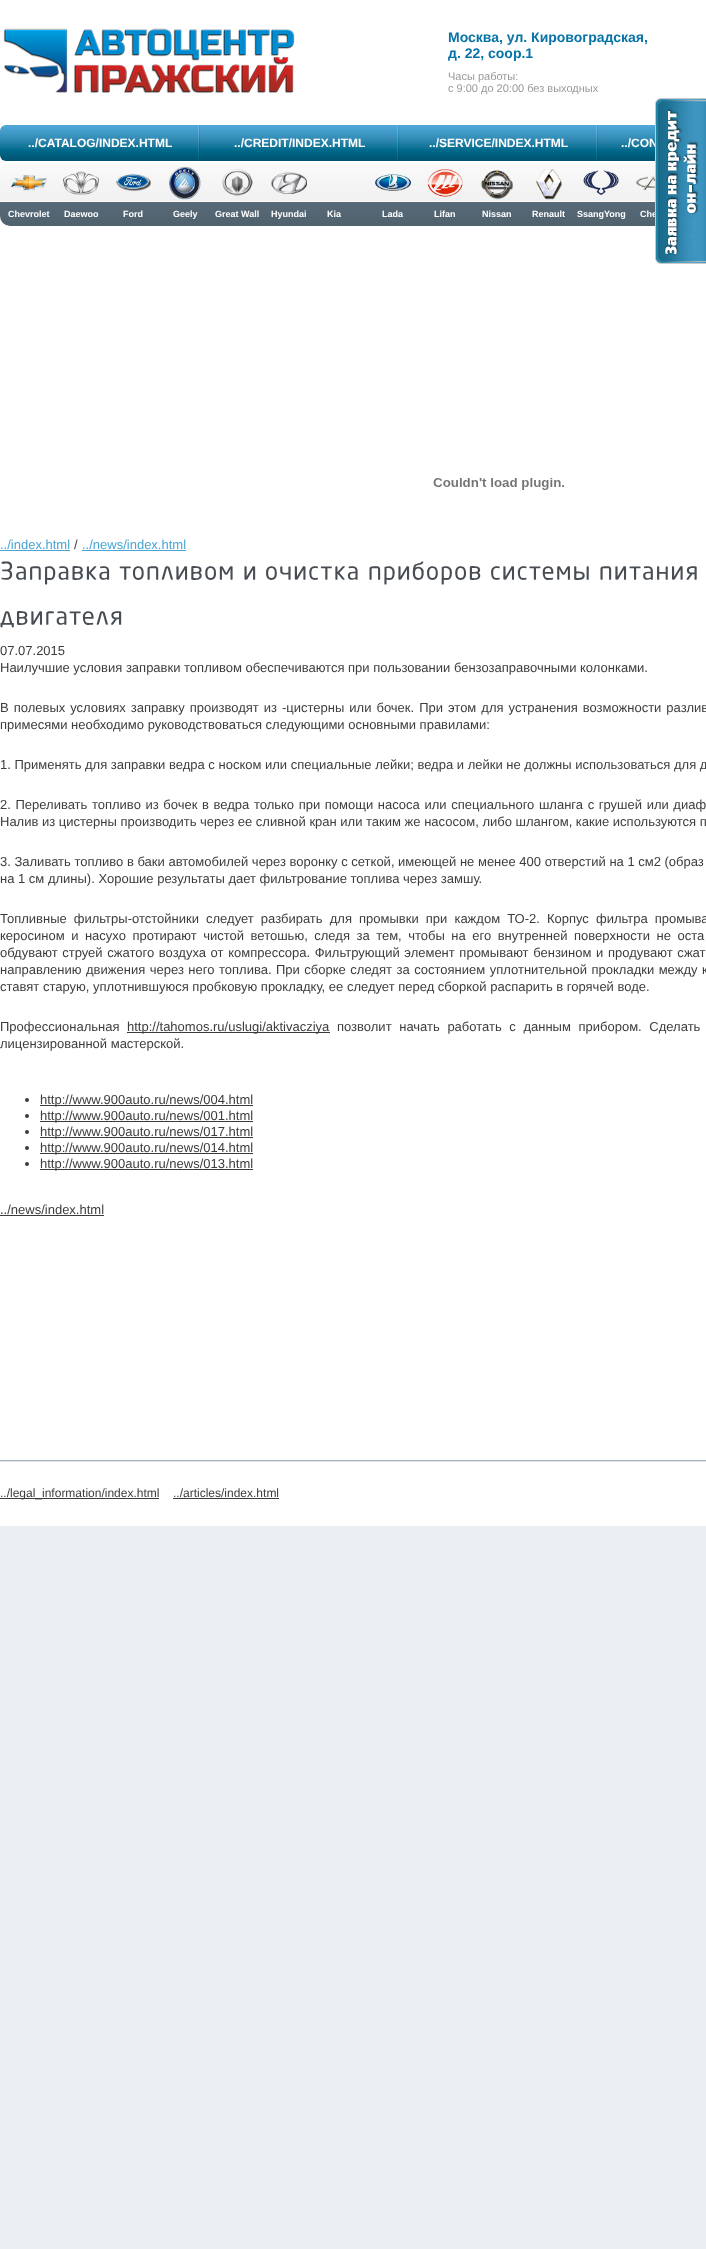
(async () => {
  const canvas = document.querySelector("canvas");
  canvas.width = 706;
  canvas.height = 2249;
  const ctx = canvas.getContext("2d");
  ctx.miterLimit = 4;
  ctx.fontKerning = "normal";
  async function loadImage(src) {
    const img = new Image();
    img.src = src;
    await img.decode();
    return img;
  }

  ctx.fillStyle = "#eceff2";
  ctx.fillRect(0, 0, 706, 2249);
  ctx.fillStyle = "#ffffff";
  ctx.fillRect(0, 0, 706, 1526);
  ctx.drawImage(await loadImage("img/1.png"), 3, 28, 292, 66);
  ctx.drawImage(await loadImage("img/2.png"), 0, 125, 655, 36);
  ctx.drawImage(await loadImage("img/3.png"), 198, 125, 2, 36);
  ctx.drawImage(await loadImage("img/3.png"), 397, 125, 2, 36);
  ctx.drawImage(await loadImage("img/3.png"), 596, 125, 2, 36);
  ctx.drawImage(await loadImage("img/4.png"), 0, 163, 655, 63);
  ctx.drawImage(await loadImage("img/5.png"), 11, 175, 36, 16);
  ctx.drawImage(await loadImage("img/6.png"), 63, 171, 36, 24);
  ctx.drawImage(await loadImage("img/7.png"), 116, 174, 35, 18);
  ctx.drawImage(await loadImage("img/8.png"), 169, 166, 32, 34);
  ctx.drawImage(await loadImage("img/9.png"), 222, 169, 31, 27);
  ctx.drawImage(await loadImage("img/10.png"), 271, 172, 36, 22);
  ctx.drawImage(await loadImage("img/11.png"), 375, 174, 36, 17);
  ctx.drawImage(await loadImage("img/12.png"), 427, 169, 36, 28);
  ctx.drawImage(await loadImage("img/13.png"), 481, 170, 32, 30);
  ctx.drawImage(await loadImage("img/14.png"), 536, 169, 26, 31);
  ctx.drawImage(await loadImage("img/15.png"), 583, 170, 36, 25);
  ctx.drawImage(await loadImage("img/16.png"), 635, 176, 20, 15);
  ctx.drawImage(await loadImage("img/17.png"), 433, 478, 131, 12);
  ctx.fillStyle = "#49a5d4";
  ctx.fillRect(0, 550, 70, 1);
  ctx.fillRect(82, 550, 104, 1);
  ctx.drawImage(await loadImage("img/18.png"), 1, 561, 109, 24);
  ctx.drawImage(await loadImage("img/19.png"), 119, 566, 114, 14);
  ctx.drawImage(await loadImage("img/20.png"), 244, 566, 12, 14);
  ctx.drawImage(await loadImage("img/21.png"), 266, 566, 92, 14);
  ctx.drawImage(await loadImage("img/22.png"), 369, 561, 112, 24);
  ctx.drawImage(await loadImage("img/23.png"), 491, 566, 98, 14);
  ctx.drawImage(await loadImage("img/24.png"), 600, 566, 97, 14);
  ctx.drawImage(await loadImage("img/25.png"), 0, 611, 122, 17);
  ctx.fillStyle = "#3c3c3c";
  ctx.fillRect(127, 1032, 203, 1);
  ctx.beginPath();
  ctx.arc(27, 1100, 2, 0, Math.PI * 2);
  ctx.fill();
  ctx.fillRect(40, 1105, 213, 1);
  ctx.beginPath();
  ctx.arc(27, 1116, 2, 0, Math.PI * 2);
  ctx.fill();
  ctx.fillRect(40, 1121, 213, 1);
  ctx.beginPath();
  ctx.arc(27, 1132, 2, 0, Math.PI * 2);
  ctx.fill();
  ctx.fillRect(40, 1137, 213, 1);
  ctx.beginPath();
  ctx.arc(27, 1148, 2, 0, Math.PI * 2);
  ctx.fill();
  ctx.fillRect(40, 1153, 213, 1);
  ctx.beginPath();
  ctx.arc(27, 1164, 2, 0, Math.PI * 2);
  ctx.fill();
  ctx.fillRect(40, 1169, 213, 1);
  ctx.fillRect(0, 1215, 104, 1);
  ctx.drawImage(await loadImage("img/26.png"), 0, 1460, 706, 2);
  ctx.fillRect(0, 1498, 159, 1);
  ctx.fillRect(173, 1498, 106, 1);
  ctx.font = "bold 14px Liberation Sans";
  ctx.fillStyle = "#0773a6";
  ctx.fillText("Москва, ул. Кировоградская,", 448, 42);
  ctx.fillText("д. 22, соор.1", 448, 58);
  ctx.font = "11px Liberation Sans";
  ctx.fillStyle = "#999999";
  ctx.fillText("Часы работы:", 448, 80);
  ctx.fillText("с 9:00 до 20:00 без выходных", 448, 92);
  ctx.font = "bold 12px Liberation Sans";
  ctx.fillStyle = "#ffffff";
  for (const [text, x, y] of [
    ["../CATALOG/INDEX.HTML", 28, 147],
    ["../CREDIT/INDEX.HTML", 234, 147],
    ["../SERVICE/INDEX.HTML", 429, 147],
    ["../CON", 621, 147],
  ]) {
    ctx.fillText(text, x, y);
  }
  ctx.font = "bold 9px Liberation Sans";
  for (const [text, x, y] of [
    ["Chevrolet", 8, 217],
    ["Daewoo", 64, 217],
    ["Ford", 123, 217],
    ["Geely", 173, 217],
    ["Great Wall", 215, 217],
    ["Hyundai", 271, 217],
    ["Kia", 327, 217],
    ["Lada", 382, 217],
    ["Lifan", 434, 217],
    ["Nissan", 482, 217],
    ["Renault", 532, 217],
    ["SsangYong", 577, 217],
    ["Che", 640, 217],
  ]) {
    ctx.fillText(text, x, y);
  }
  ctx.font = "13px Liberation Sans";
  ctx.fillStyle = "#49a5d4";
  ctx.fillText("../index.html", 0, 549);
  ctx.fillStyle = "#3c3c3c";
  ctx.fillText("/", 74, 549);
  ctx.fillStyle = "#49a5d4";
  ctx.fillText("../news/index.html", 82, 549);
  ctx.fillStyle = "#3c3c3c";
  ctx.fillText("07.07.2015", 0, 655);
  ctx.fillText("Наилучшие условия заправки топливом обеспечиваются при пользовании бензозаправочными колонками.", 0, 672);
  ctx.wordSpacing = "1.4px";
  ctx.fillText("В полевых условиях заправку производят из -цистерны или бочек. При этом для устранения возможности разлив", 0, 712);
  ctx.wordSpacing = "0px";
  ctx.fillText("примесями необходимо руководствоваться следующими основными правилами:", 0, 729);
  ctx.fillText("1. Применять для заправки ведра с носком или специальные лейки; ведра и лейки не должны использоваться для д", 0, 769);
  ctx.wordSpacing = "1px";
  ctx.fillText("2. Переливать топливо из бочек в ведра только при помощи насоса или специального шланга с грушей или диаф", 0, 809);
  ctx.wordSpacing = "0px";
  for (const [text, x, y] of [
    ["Налив из цистерны производить через ее сливной кран или таким же насосом, либо шлангом, какие используются п", 0, 826],
    ["3. Заливать топливо в баки автомобилей через воронку с сеткой, имеющей не менее 400 отверстий на 1 см2 (образ", 0, 866],
    ["на 1 см длины). Хорошие результаты дает фильтрование топлива через замшу.", 0, 883],
  ]) {
    ctx.fillText(text, x, y);
  }
  ctx.wordSpacing = "3.5px";
  ctx.fillText("Топливные фильтры-отстойники следует разбирать для промывки при каждом ТО-2. Корпус фильтра промыва", 0, 923);
  ctx.wordSpacing = "2.9px";
  ctx.fillText("керосином и насухо протирают чистой ветошью, следя за тем, чтобы на его внутренней поверхности не оста", 0, 940);
  ctx.wordSpacing = "1px";
  ctx.fillText("обдувают струей сжатого воздуха от компрессора. Фильтрующий элемент промывают бензином и продувают сжат", 0, 957);
  ctx.wordSpacing = "0.9px";
  ctx.fillText("направлению движения через него топлива. При сборке следят за состоянием уплотнительной прокладки между к", 0, 974);
  ctx.wordSpacing = "0px";
  for (const [text, x, y] of [
    ["ставят старую, уплотнившуюся пробковую прокладку, ее следует перед сборкой распарить в горячей воде.", 0, 991],
    ["Профессиональная", 0, 1031],
    ["http://tahomos.ru/uslugi/aktivacziya", 127, 1031],
  ]) {
    ctx.fillText(text, x, y);
  }
  ctx.wordSpacing = "4px";
  ctx.fillText("позволит начать работать с данным прибором. Сделать", 337, 1031);
  ctx.wordSpacing = "0px";
  for (const [text, x, y] of [
    ["лицензированной мастерской.", 0, 1048],
    ["http://www.900auto.ru/news/004.html", 40, 1104],
    ["http://www.900auto.ru/news/001.html", 40, 1120],
    ["http://www.900auto.ru/news/017.html", 40, 1136],
    ["http://www.900auto.ru/news/014.html", 40, 1152],
    ["http://www.900auto.ru/news/013.html", 40, 1168],
    ["../news/index.html", 0, 1214],
  ]) {
    ctx.fillText(text, x, y);
  }
  ctx.font = "12px Liberation Sans";
  ctx.fillText("../legal_information/index.html", 0, 1497);
  ctx.fillText("../articles/index.html", 173, 1497);
  ctx.drawImage(await loadImage("img/27.png"), 655, 98, 51, 166);
})();
